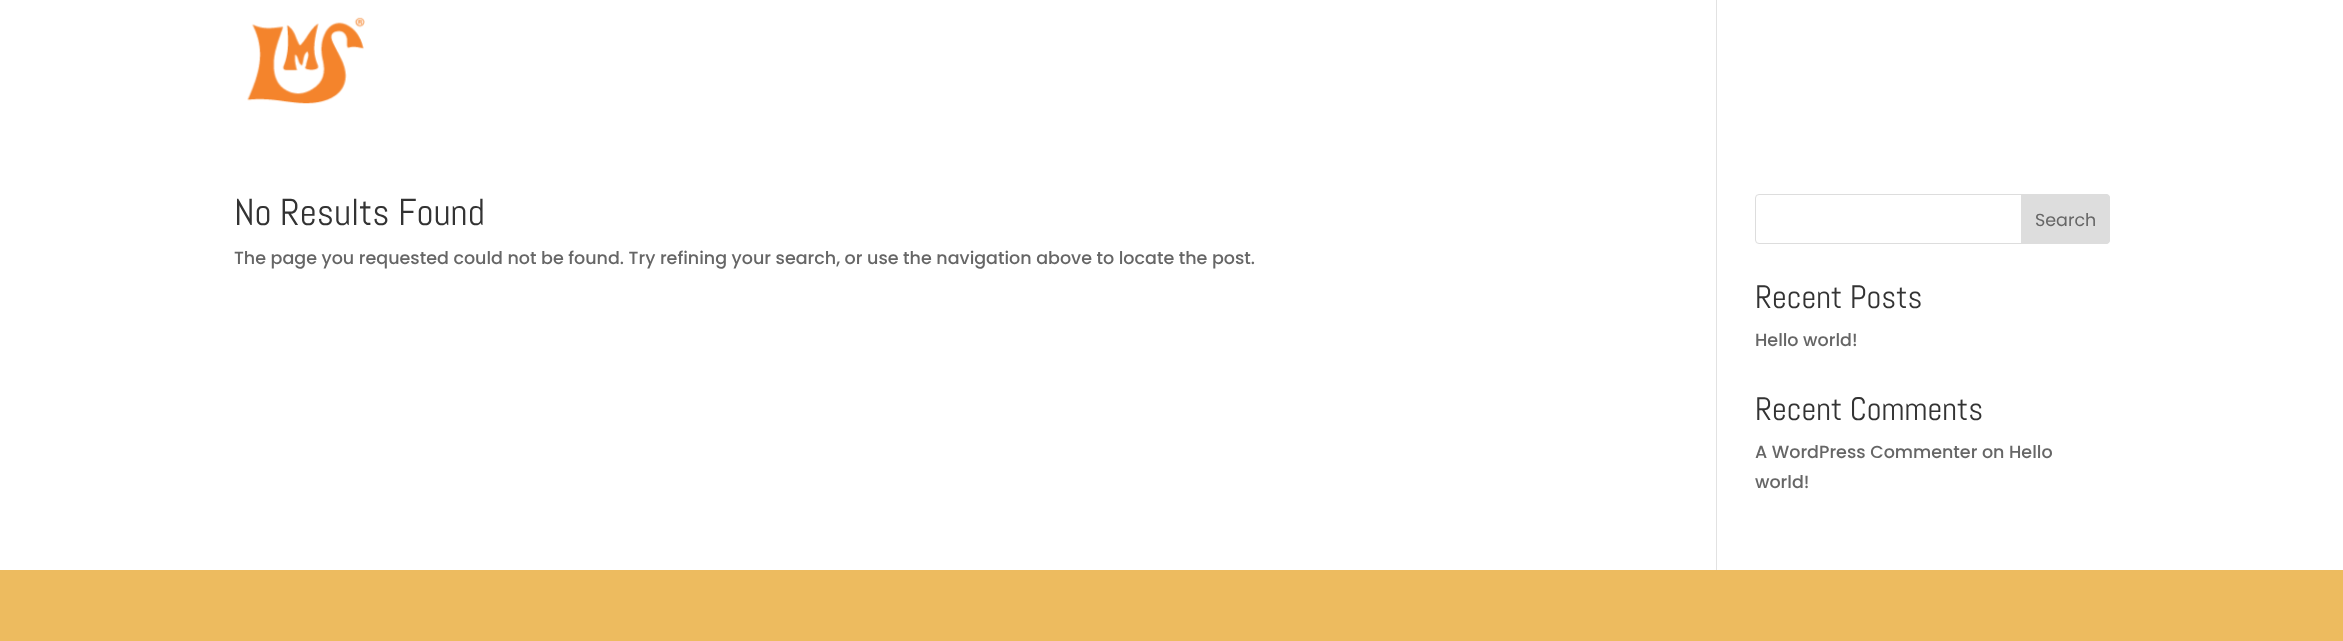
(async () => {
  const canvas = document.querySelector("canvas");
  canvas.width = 2343;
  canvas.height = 641;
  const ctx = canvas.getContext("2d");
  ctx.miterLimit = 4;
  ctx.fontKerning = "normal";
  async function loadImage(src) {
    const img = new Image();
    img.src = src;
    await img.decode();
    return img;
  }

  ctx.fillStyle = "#ffffff";
  ctx.fillRect(0, 0, 2343, 641);
  ctx.drawImage(await loadImage("img/1.png"), 247, 17, 118, 87);
  ctx.fillStyle = "#e2e2e2";
  ctx.fillRect(1716, 0, 1, 570);
  ctx.beginPath();
  ctx.roundRect(1755.5, 194.5, 354, 49, 3.5);
  ctx.strokeStyle = "#dddddd";
  ctx.stroke();
  ctx.fillStyle = "#dddddd";
  ctx.beginPath();
  ctx.roundRect(2021.5, 194.5, 88, 49, [0, 3.5, 3.5, 0]);
  ctx.fill();
  ctx.stroke();
  ctx.fillStyle = "#edbb5f";
  ctx.fillRect(0, 570, 2343, 71);
  ctx.font = "37.5px Abel";
  ctx.fillStyle = "#333333";
  ctx.fillText("No Results Found", 234, 225);
  ctx.font = "500 17.5px Poppins";
  ctx.fillStyle = "#666666";
  ctx.fillText("The page you requested could not be found. Try refining your search, or use the navigation above to locate the post.", 234, 264);
  ctx.font = "17.5px Poppins";
  ctx.fillText("Search", 2035, 226);
  ctx.font = "32.5px Abel";
  ctx.fillStyle = "#333333";
  ctx.fillText("Recent Posts", 1755, 308);
  ctx.font = "500 17.5px Poppins";
  ctx.fillStyle = "#666666";
  ctx.fillText("Hello world!", 1755, 346);
  ctx.font = "32.5px Abel";
  ctx.fillStyle = "#333333";
  ctx.fillText("Recent Comments", 1755, 420);
  ctx.font = "500 17.5px Poppins";
  ctx.fillStyle = "#666666";
  ctx.fillText("A WordPress Commenter on Hello", 1755, 458);
  ctx.fillText("world!", 1755, 488);
})();
